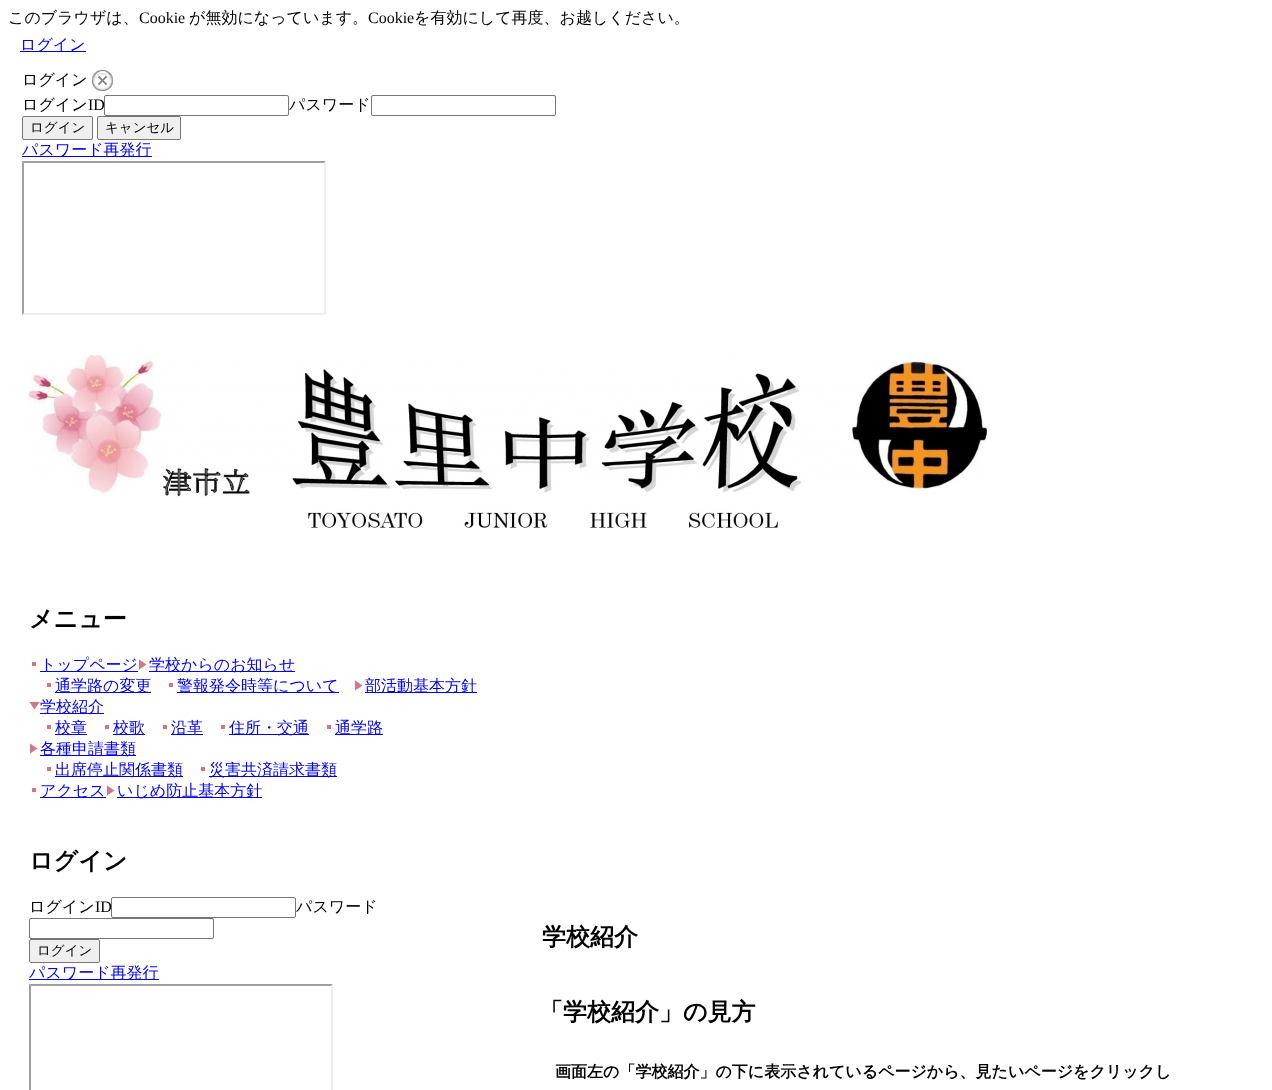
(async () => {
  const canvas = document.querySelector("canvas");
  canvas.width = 1272;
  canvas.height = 1090;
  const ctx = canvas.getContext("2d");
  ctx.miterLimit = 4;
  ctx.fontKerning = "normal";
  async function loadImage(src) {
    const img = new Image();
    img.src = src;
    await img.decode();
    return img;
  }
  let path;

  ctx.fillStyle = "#ffffff";
  ctx.fillRect(0, 0, 1272, 1090);
  ctx.fillStyle = "#0000ee";
  ctx.fillRect(20, 51, 66, 1);
  ctx.drawImage(await loadImage("img/1.png"), 92, 70, 21, 21);
  ctx.beginPath();
  ctx.roundRect(104.5, 95.5, 184, 20, 1.5);
  ctx.strokeStyle = "#767676";
  ctx.stroke();
  ctx.beginPath();
  ctx.roundRect(371.5, 95.5, 184, 20, 1.5);
  ctx.stroke();
  ctx.fillStyle = "#efefef";
  ctx.beginPath();
  ctx.roundRect(22.5, 116.5, 70, 23, 1.5);
  ctx.fill();
  ctx.stroke();
  ctx.beginPath();
  ctx.roundRect(97.5, 116.5, 83, 23, 1.5);
  ctx.fill();
  ctx.stroke();
  ctx.fillStyle = "#0000ee";
  ctx.fillRect(22, 156, 130, 1);
  ctx.fillStyle = "#9f9f9f";
  path = new Path2D("M22 161H326L324 163H24Z");
  ctx.fill(path);
  ctx.fillStyle = "#eeeeee";
  path = new Path2D("M326 161V315L324 313V163Z");
  ctx.fill(path);
  path = new Path2D("M326 315H22L24 313H324Z");
  ctx.fill(path);
  ctx.fillStyle = "#9f9f9f";
  path = new Path2D("M22 315V161L24 163V313Z");
  ctx.fill(path);
  ctx.drawImage(await loadImage("img/2.png"), 28, 353, 960, 175);
  ctx.fillStyle = "#d57486";
  ctx.fillRect(32, 662, 4, 4);
  ctx.fillStyle = "#0000ee";
  ctx.fillRect(40, 671, 98, 1);
  ctx.drawImage(await loadImage("img/3.png"), 139, 659, 8, 11);
  for (const [x, y, w, h, color] of [
    [149, 671, 146, 1, "#0000ee"],
    [47, 683, 4, 4, "#d57486"],
    [55, 692, 96, 1, "#0000ee"],
    [169, 683, 4, 4, "#d57486"],
    [177, 692, 162, 1, "#0000ee"],
  ]) {
    ctx.fillStyle = color;
    ctx.fillRect(x, y, w, h);
  }
  ctx.drawImage(await loadImage("img/3.png"), 355, 680, 8, 11);
  ctx.fillRect(365, 692, 112, 1);
  ctx.drawImage(await loadImage("img/4.png"), 29, 702, 11, 8);
  for (const [x, y, w, h, color] of [
    [40, 713, 64, 1, "#0000ee"],
    [47, 725, 4, 4, "#d57486"],
    [55, 734, 32, 1, "#0000ee"],
    [105, 725, 4, 4, "#d57486"],
    [113, 734, 32, 1, "#0000ee"],
    [163, 725, 4, 4, "#d57486"],
    [171, 734, 32, 1, "#0000ee"],
    [221, 725, 4, 4, "#d57486"],
    [229, 734, 80, 1, "#0000ee"],
    [327, 725, 4, 4, "#d57486"],
    [335, 734, 48, 1, "#0000ee"],
  ]) {
    ctx.fillStyle = color;
    ctx.fillRect(x, y, w, h);
  }
  ctx.drawImage(await loadImage("img/3.png"), 30, 743, 8, 11);
  for (const [x, y, w, h, color] of [
    [40, 755, 96, 1, "#0000ee"],
    [47, 767, 4, 4, "#d57486"],
    [55, 776, 128, 1, "#0000ee"],
    [201, 767, 4, 4, "#d57486"],
    [209, 776, 128, 1, "#0000ee"],
    [32, 788, 4, 4, "#d57486"],
    [40, 797, 66, 1, "#0000ee"],
  ]) {
    ctx.fillStyle = color;
    ctx.fillRect(x, y, w, h);
  }
  ctx.drawImage(await loadImage("img/3.png"), 107, 785, 8, 11);
  ctx.fillRect(117, 797, 145, 1);
  ctx.beginPath();
  ctx.roundRect(111.5, 897.5, 184, 20, 1.5);
  ctx.stroke();
  ctx.beginPath();
  ctx.roundRect(29.5, 918.5, 184, 20, 1.5);
  ctx.stroke();
  ctx.fillStyle = "#efefef";
  ctx.beginPath();
  ctx.roundRect(29.5, 939.5, 70, 23, 1.5);
  ctx.fill();
  ctx.stroke();
  ctx.fillStyle = "#0000ee";
  ctx.fillRect(29, 979, 130, 1);
  ctx.fillStyle = "#9f9f9f";
  path = new Path2D("M29 984H333L331 986H31Z");
  ctx.fill(path);
  path = new Path2D("M29 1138V984L31 986V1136Z");
  ctx.fill(path);
  ctx.fillStyle = "#eeeeee";
  path = new Path2D("M333 984V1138L331 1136V986Z");
  ctx.fill(path);
  ctx.font = "500 16px WenQuanYi Zen Hei";
  ctx.fillStyle = "#000000";
  ctx.fillText("このブラウザは、", 8, 23);
  ctx.font = "16px Liberation Serif";
  ctx.fillText("Cookie", 139, 23);
  ctx.font = "500 16px WenQuanYi Zen Hei";
  ctx.fillText("が無効になっています。", 189, 23);
  ctx.font = "16px Liberation Serif";
  ctx.fillText("Cookie", 368, 23);
  ctx.font = "500 16px WenQuanYi Zen Hei";
  ctx.fillText("を有効にして再度、お越しください。", 414, 23);
  ctx.fillStyle = "#0000ee";
  ctx.fillText("ログイン", 20, 50);
  ctx.fillStyle = "#000000";
  ctx.fillText("ログイン", 22, 85);
  ctx.fillText("ログイン", 22, 110);
  ctx.font = "16px Liberation Serif";
  ctx.fillText("ID", 88, 110);
  ctx.font = "500 16px WenQuanYi Zen Hei";
  ctx.fillText("パスワード", 289, 110);
  ctx.font = "500 13.5px WenQuanYi Zen Hei";
  ctx.fillText("ログイン", 30, 132);
  ctx.fillText("キャンセル", 105, 132);
  ctx.font = "500 16px WenQuanYi Zen Hei";
  ctx.fillStyle = "#0000ee";
  ctx.fillText("パスワード再発行", 22, 155);
  ctx.font = "bold 24px WenQuanYi Zen Hei";
  ctx.fillStyle = "#000000";
  ctx.fillText("メニュー", 29, 627);
  ctx.font = "500 16px WenQuanYi Zen Hei";
  ctx.fillStyle = "#0000ee";
  for (const [text, x, y] of [
    ["トップページ", 40, 670],
    ["学校からのお知らせ", 149, 670],
    ["通学路の変更", 55, 691],
    ["警報発令時等について", 177, 691],
    ["部活動基本方針", 365, 691],
    ["学校紹介", 40, 712],
    ["校章", 55, 733],
    ["校歌", 113, 733],
    ["沿革", 171, 733],
    ["住所・交通", 229, 733],
    ["通学路", 335, 733],
    ["各種申請書類", 40, 754],
    ["出席停止関係書類", 55, 775],
    ["災害共済請求書類", 209, 775],
    ["アクセス", 40, 796],
    ["いじめ防止基本方針", 117, 796],
  ]) {
    ctx.fillText(text, x, y);
  }
  ctx.font = "bold 24px WenQuanYi Zen Hei";
  ctx.fillStyle = "#000000";
  ctx.fillText("ログイン", 29, 869);
  ctx.font = "500 16px WenQuanYi Zen Hei";
  ctx.fillText("ログイン", 29, 912);
  ctx.font = "16px Liberation Serif";
  ctx.fillText("ID", 95, 912);
  ctx.font = "500 16px WenQuanYi Zen Hei";
  ctx.fillText("パスワード", 296, 912);
  ctx.font = "500 13.5px WenQuanYi Zen Hei";
  ctx.fillText("ログイン", 37, 955);
  ctx.font = "500 16px WenQuanYi Zen Hei";
  ctx.fillStyle = "#0000ee";
  ctx.fillText("パスワード再発行", 29, 978);
  ctx.font = "bold 24px WenQuanYi Zen Hei";
  ctx.fillStyle = "#000000";
  ctx.fillText("学校紹介", 542, 945);
  ctx.fillText("「学校紹介」の見方", 539, 1020);
  ctx.font = "bold 16px WenQuanYi Zen Hei";
  ctx.fillText("画面左の「学校紹介」の下に表示されているページから、見たいページをクリックし", 555, 1077);
})();
